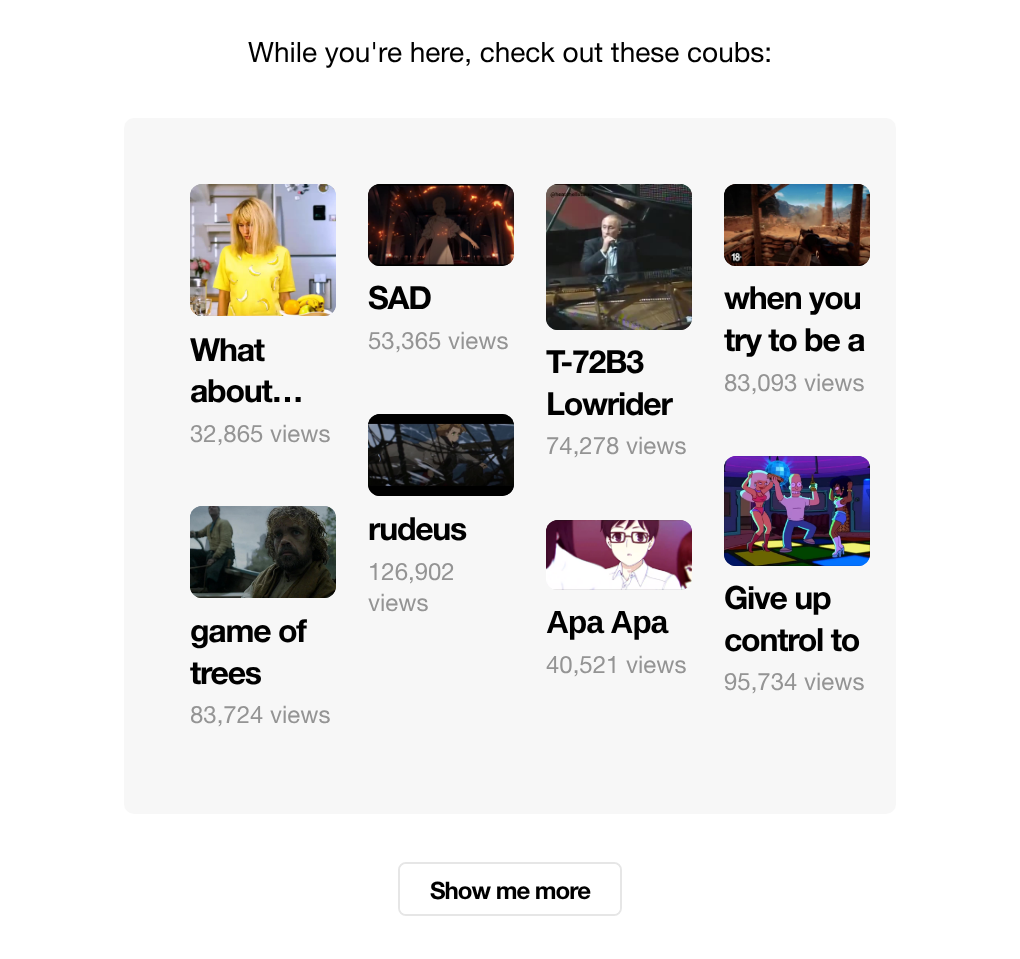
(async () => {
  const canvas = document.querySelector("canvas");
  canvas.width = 1020;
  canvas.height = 959;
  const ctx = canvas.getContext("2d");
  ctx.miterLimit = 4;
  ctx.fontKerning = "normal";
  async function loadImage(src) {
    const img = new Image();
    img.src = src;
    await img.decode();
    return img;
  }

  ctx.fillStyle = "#ffffff";
  ctx.fillRect(0, 0, 1020, 959);
  ctx.fillStyle = "#f7f7f7";
  ctx.beginPath();
  ctx.roundRect(124, 118, 772, 696, 10);
  ctx.fill();
  ctx.drawImage(await loadImage("img/1.png"), 190, 184, 146, 132);
  ctx.drawImage(await loadImage("img/2.png"), 190, 184, 146, 132);
  ctx.drawImage(await loadImage("img/3.png"), 368, 184, 146, 82);
  ctx.drawImage(await loadImage("img/4.png"), 368, 184, 146, 82);
  ctx.drawImage(await loadImage("img/5.png"), 546, 184, 146, 146);
  ctx.drawImage(await loadImage("img/6.png"), 546, 184, 146, 146);
  ctx.drawImage(await loadImage("img/7.png"), 724, 184, 146, 82);
  ctx.drawImage(await loadImage("img/8.png"), 724, 184, 146, 82);
  ctx.drawImage(await loadImage("img/9.png"), 368, 414, 146, 82);
  ctx.drawImage(await loadImage("img/10.png"), 368, 414, 146, 82);
  ctx.drawImage(await loadImage("img/11.png"), 190, 506, 146, 92);
  ctx.drawImage(await loadImage("img/12.png"), 190, 506, 146, 92);
  ctx.drawImage(await loadImage("img/13.png"), 546, 520, 146, 70);
  ctx.drawImage(await loadImage("img/14.png"), 546, 520, 146, 70);
  ctx.drawImage(await loadImage("img/15.png"), 724, 456, 146, 110);
  ctx.drawImage(await loadImage("img/16.png"), 724, 456, 146, 110);
  ctx.beginPath();
  ctx.roundRect(399, 863, 222, 52, 7);
  ctx.strokeStyle = "#e6e6e6";
  ctx.lineWidth = 2;
  ctx.stroke();
  ctx.fillStyle = "#ffffff";
  ctx.beginPath();
  ctx.roundRect(400, 864, 220, 50, 6);
  ctx.fill();
  ctx.font = "28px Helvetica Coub";
  ctx.fillStyle = "#000000";
  ctx.fillText("While you're here, check out these coubs:", 248, 62);
  ctx.letterSpacing = "-1.25px";
  ctx.font = "bold 32px Helvetica Coub";
  ctx.fillText("What", 190, 361);
  ctx.fillText("about…", 190, 402);
  ctx.letterSpacing = "0px";
  ctx.font = "24px Helvetica Coub";
  ctx.fillStyle = "#949494";
  ctx.fillText("32,865 views", 190, 442);
  ctx.letterSpacing = "-1.25px";
  ctx.font = "bold 32px Helvetica Coub";
  ctx.fillStyle = "#000000";
  ctx.fillText("SAD", 368, 309);
  ctx.letterSpacing = "0px";
  ctx.font = "24px Helvetica Coub";
  ctx.fillStyle = "#949494";
  ctx.fillText("53,365 views", 368, 349);
  ctx.letterSpacing = "-1.25px";
  ctx.font = "bold 32px Helvetica Coub";
  ctx.fillStyle = "#000000";
  ctx.fillText("T-72B3", 546, 373);
  ctx.fillText("Lowrider", 546, 415);
  ctx.letterSpacing = "0px";
  ctx.font = "24px Helvetica Coub";
  ctx.fillStyle = "#949494";
  ctx.fillText("74,278 views", 546, 454);
  ctx.letterSpacing = "-1.25px";
  ctx.font = "bold 32px Helvetica Coub";
  ctx.fillStyle = "#000000";
  ctx.fillText("when you", 724, 309);
  ctx.fillText("try to be a", 724, 351);
  ctx.letterSpacing = "0px";
  ctx.font = "24px Helvetica Coub";
  ctx.fillStyle = "#949494";
  ctx.fillText("83,093 views", 724, 391);
  ctx.letterSpacing = "-1.25px";
  ctx.font = "bold 32px Helvetica Coub";
  ctx.fillStyle = "#000000";
  ctx.fillText("rudeus", 368, 540);
  ctx.letterSpacing = "0px";
  ctx.font = "24px Helvetica Coub";
  ctx.fillStyle = "#949494";
  ctx.fillText("126,902", 368, 580);
  ctx.fillText("views", 368, 611);
  ctx.letterSpacing = "-1.25px";
  ctx.font = "bold 32px Helvetica Coub";
  ctx.fillStyle = "#000000";
  ctx.fillText("game of", 190, 642);
  ctx.fillText("trees", 190, 684);
  ctx.letterSpacing = "0px";
  ctx.font = "24px Helvetica Coub";
  ctx.fillStyle = "#949494";
  ctx.fillText("83,724 views", 190, 723);
  ctx.letterSpacing = "-1.25px";
  ctx.font = "bold 32px Liberation Sans";
  ctx.fillStyle = "#000000";
  ctx.fillText("Ара Ара", 546, 633);
  ctx.letterSpacing = "0px";
  ctx.font = "24px Helvetica Coub";
  ctx.fillStyle = "#949494";
  ctx.fillText("40,521 views", 546, 673);
  ctx.letterSpacing = "-1.25px";
  ctx.font = "bold 32px Helvetica Coub";
  ctx.fillStyle = "#000000";
  ctx.fillText("Give up", 724, 609);
  ctx.fillText("control to", 724, 651);
  ctx.letterSpacing = "0px";
  ctx.font = "24px Helvetica Coub";
  ctx.fillStyle = "#949494";
  ctx.fillText("95,734 views", 724, 690);
  ctx.letterSpacing = "-1px";
  ctx.font = "bold 24px Helvetica Coub";
  ctx.fillStyle = "#000000";
  ctx.fillText("Show me more", 430, 899);
})();
